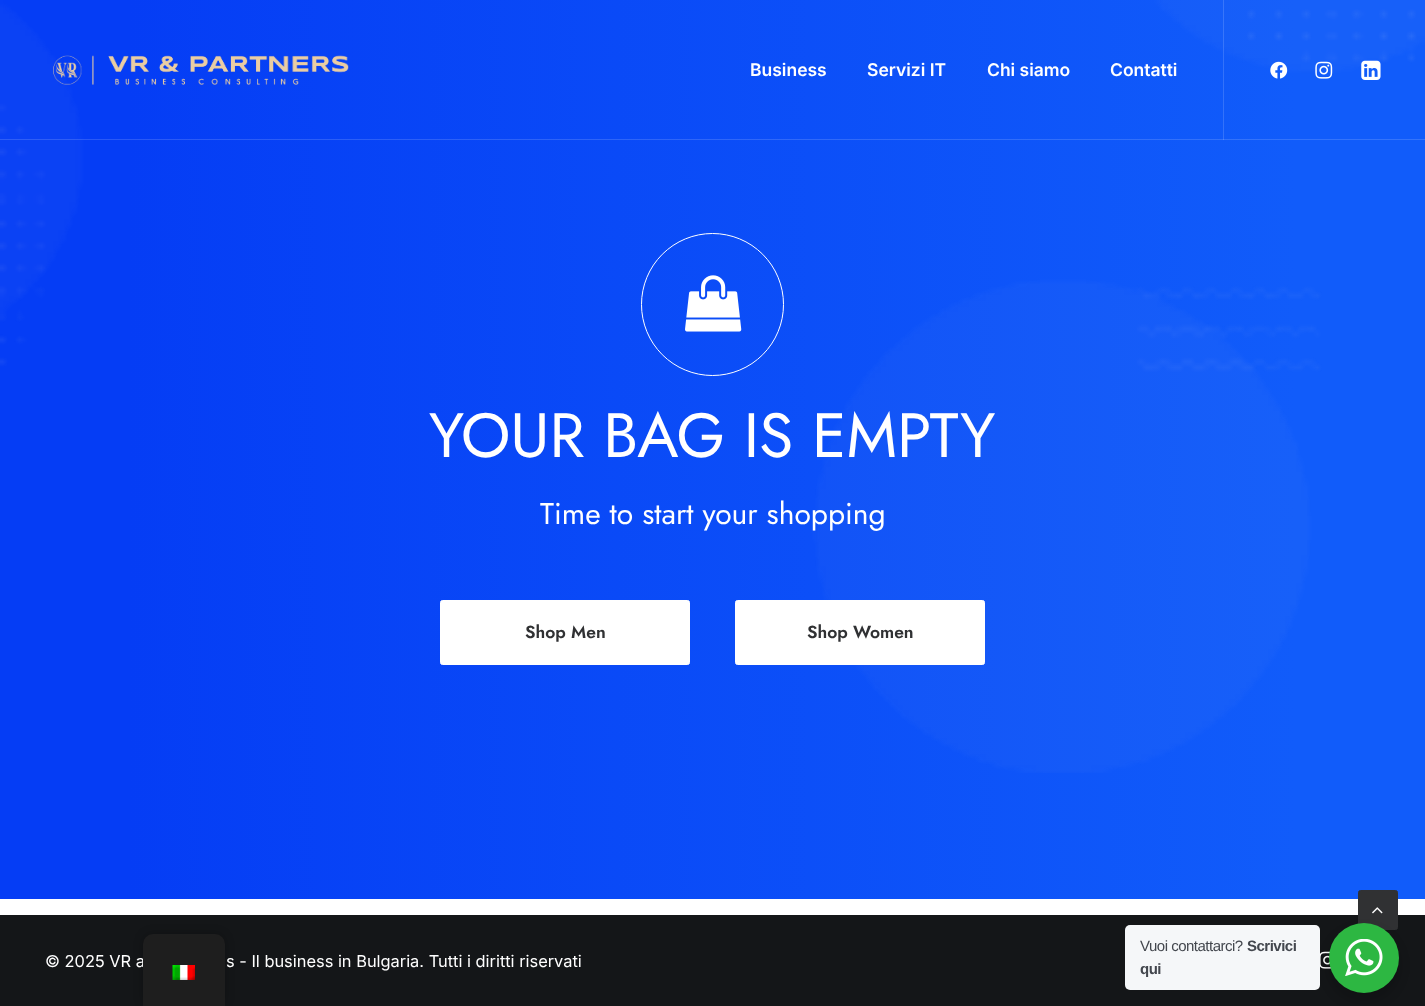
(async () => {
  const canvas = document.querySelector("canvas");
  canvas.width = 1425;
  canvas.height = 1006;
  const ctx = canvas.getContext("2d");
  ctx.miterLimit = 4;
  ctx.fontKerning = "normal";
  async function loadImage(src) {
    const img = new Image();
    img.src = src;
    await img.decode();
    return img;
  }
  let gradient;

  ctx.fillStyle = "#141618";
  ctx.fillRect(0, 0, 1425, 1006);
  gradient = ctx.createLinearGradient(1425, 449, 0, 449);
  gradient.addColorStop(0.09, "#115cfa");
  gradient.addColorStop(0.91, "#053df5");
  ctx.fillStyle = gradient;
  ctx.fillRect(0, 0, 1425, 899);
  ctx.drawImage(await loadImage("img/5.png"), 0, 0, 1425, 773);
  ctx.drawImage(await loadImage("img/1.png"), 53, 55, 296, 30);
  ctx.fillStyle = "rgba(255, 255, 255, 0.15)";
  ctx.fillRect(0, 139, 1425, 1);
  ctx.fillRect(1223, 0, 1, 140);
  ctx.drawImage(await loadImage("img/2.png"), 1270, 61, 18, 18);
  ctx.drawImage(await loadImage("img/3.png"), 1315, 61, 18, 18);
  ctx.drawImage(await loadImage("img/4.png"), 1361, 60, 20, 20);
  ctx.beginPath();
  ctx.arc(712.5, 304.5, 71, 0, Math.PI * 2);
  ctx.strokeStyle = "#ffffff";
  ctx.stroke();
  ctx.drawImage(await loadImage("img/6.png"), 685, 275, 57, 57);
  ctx.fillStyle = "#ffffff";
  ctx.beginPath();
  ctx.roundRect(440.5, 600.5, 249, 64, 2);
  ctx.fill();
  ctx.stroke();
  ctx.beginPath();
  ctx.roundRect(735.5, 600.5, 249, 64, 2);
  ctx.fill();
  ctx.stroke();
  ctx.fillRect(0, 899, 1425, 16);
  ctx.drawImage(await loadImage("img/7.png"), 1320, 951, 11, 18);
  ctx.fillStyle = "#303133";
  ctx.beginPath();
  ctx.roundRect(1358.5, 890.5, 39, 39, 2);
  ctx.fill();
  ctx.strokeStyle = "#303133";
  ctx.stroke();
  ctx.drawImage(await loadImage("img/8.png"), 1372, 907, 11, 7);
  ctx.fillStyle = "rgba(0, 0, 0, 0.25)";
  ctx.filter = "blur(5px)";
  ctx.beginPath();
  ctx.roundRect(143, 934, 82, 72, 10);
  ctx.fill();
  ctx.filter = "none";
  ctx.fillStyle = "rgba(0, 0, 0, 0.14)";
  ctx.filter = "blur(5px)";
  ctx.beginPath();
  ctx.roundRect(1326, 928, 75, 75, 37.5);
  ctx.fill();
  ctx.filter = "none";
  ctx.fillStyle = "#f5f7f9";
  ctx.beginPath();
  ctx.roundRect(1125, 925, 195, 65, 5);
  ctx.fill();
  ctx.fillStyle = "#2db742";
  ctx.beginPath();
  ctx.arc(1364, 958, 35, 0, Math.PI * 2);
  ctx.fill();
  ctx.drawImage(await loadImage("img/10.png"), 1345, 939, 38, 37);
  ctx.font = "600 17.5px Inter";
  ctx.fillStyle = "#ffffff";
  for (const [text, x, y] of [
    ["Business", 750, 76],
    ["Servizi IT", 867, 76],
    ["Chi siamo", 987, 76],
    ["Contatti", 1110, 76],
  ]) {
    ctx.fillText(text, x, y);
  }
  ctx.font = "62.5px Jost";
  ctx.fillText("YOUR BAG IS EMPTY", 429, 457);
  ctx.font = "30px Jost";
  ctx.fillText("Time to start your shopping", 540, 524);
  ctx.font = "600 17.5px Jost";
  ctx.fillStyle = "#303133";
  ctx.fillText("Shop Men", 525, 638);
  ctx.fillText("Shop Women", 807, 638);
  ctx.font = "16.4px Inter";
  ctx.fillStyle = "#ffffff";
  ctx.fillText("© 2025 VR a", 45, 967);
  ctx.fillText("s - Il business in Bulgaria. Tutti i diritti riservati", 226, 967);
  ctx.fillStyle = "#1e1e1e";
  ctx.beginPath();
  ctx.roundRect(143, 934, 82, 72, [10, 10, 0, 0]);
  ctx.fill();
  ctx.drawImage(await loadImage("img/9.png"), 172, 965, 23, 15);
  ctx.letterSpacing = "-0.5px";
  ctx.font = "15px Liberation Sans";
  ctx.fillStyle = "#43474e";
  ctx.fillText("Vuoi contattarci?", 1140, 951);
  ctx.font = "bold 15px Liberation Sans";
  ctx.fillText("Scrivici", 1247, 951);
  ctx.fillText("qui", 1140, 974);
})();
